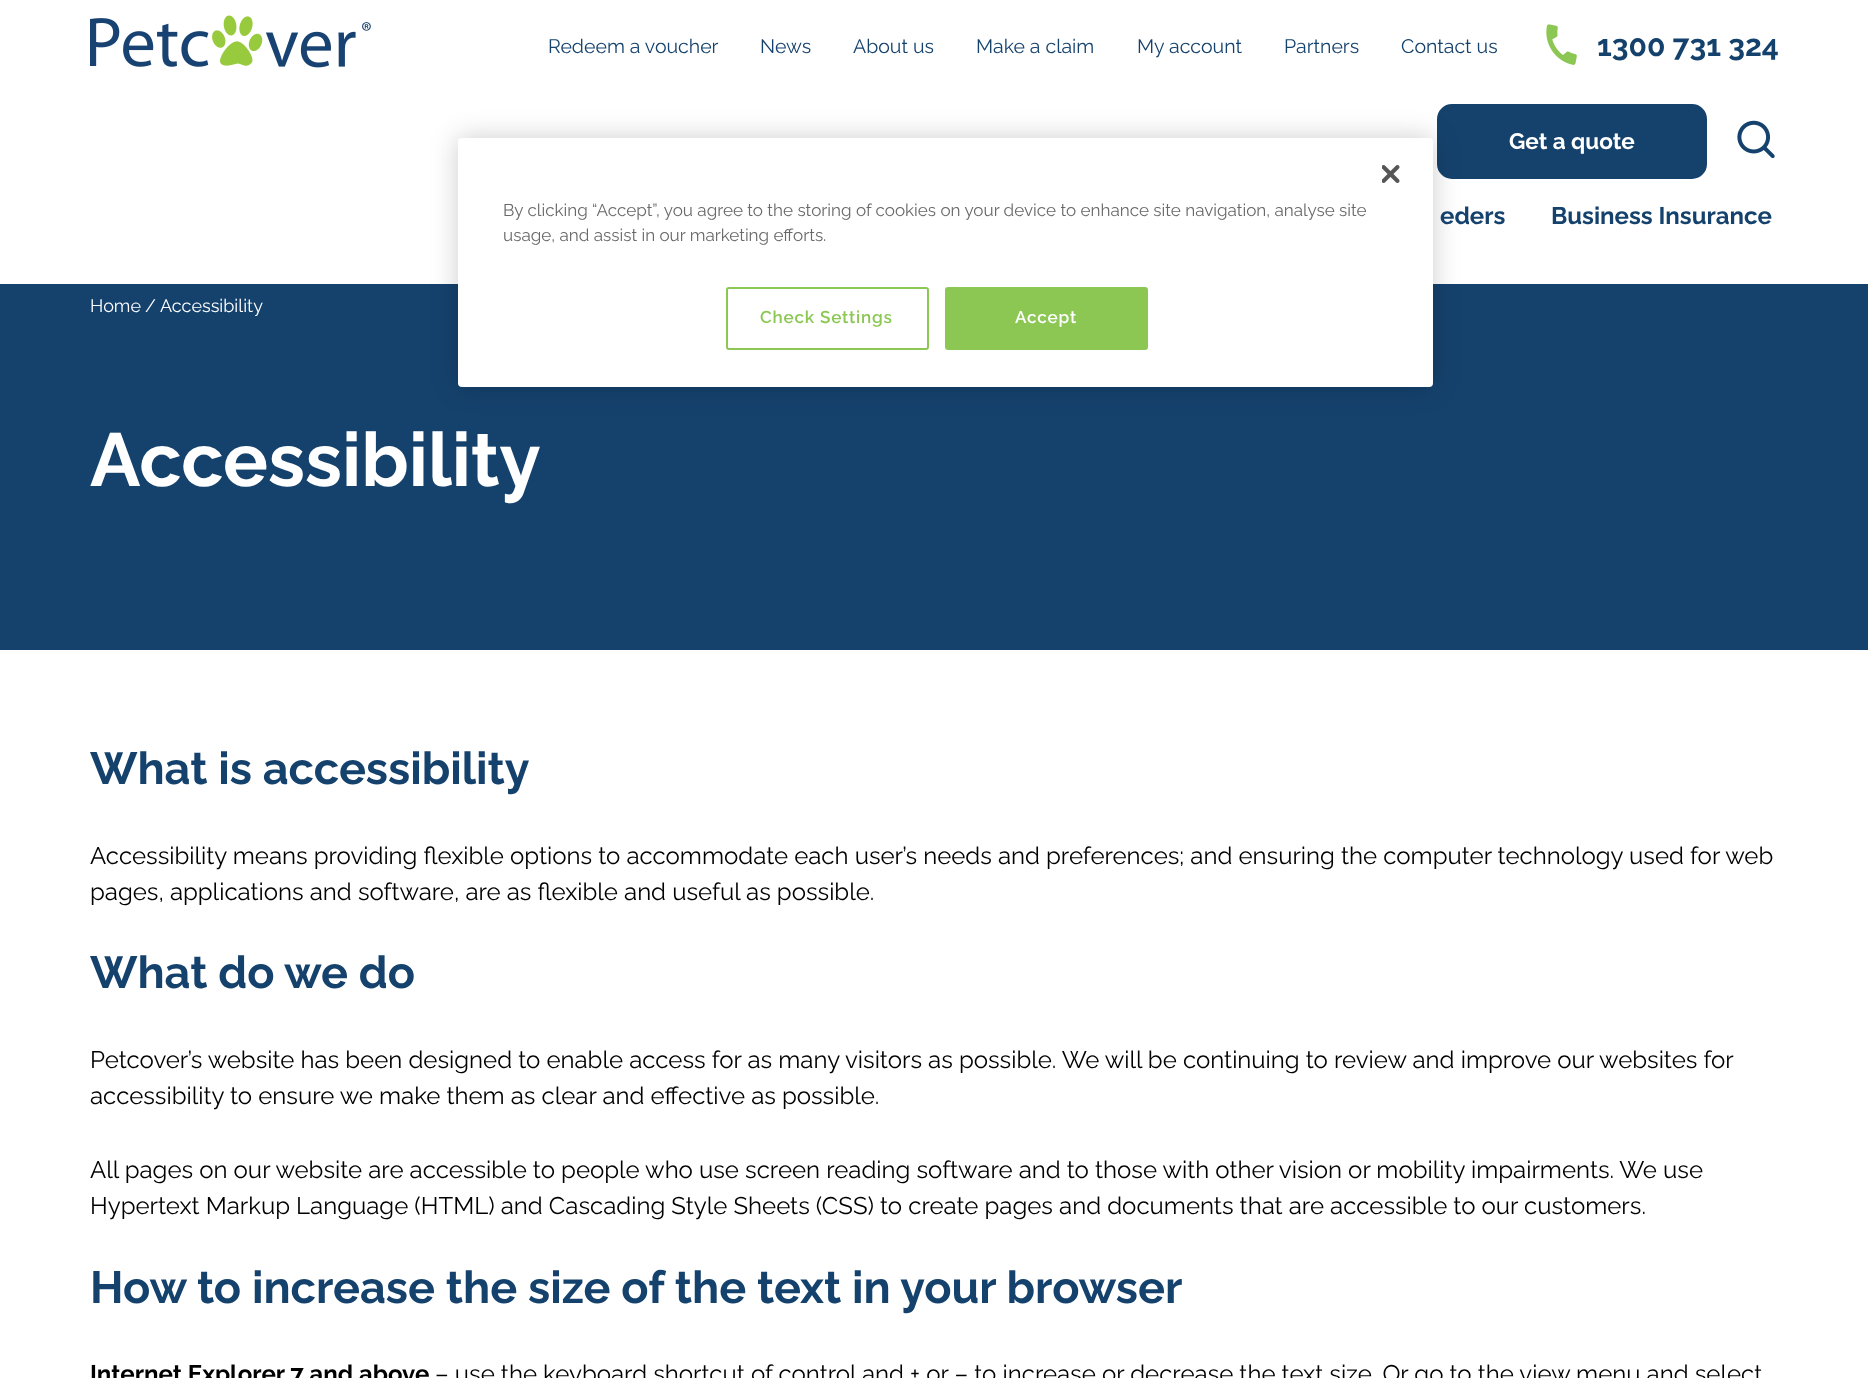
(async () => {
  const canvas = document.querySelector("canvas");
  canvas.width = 1868;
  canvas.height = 1378;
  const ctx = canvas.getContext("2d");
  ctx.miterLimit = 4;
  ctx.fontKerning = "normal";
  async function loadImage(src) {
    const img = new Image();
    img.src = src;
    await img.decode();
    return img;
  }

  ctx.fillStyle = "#ffffff";
  ctx.fillRect(0, 0, 1868, 1378);
  ctx.drawImage(await loadImage("img/1.png"), 90, 15, 281, 53);
  ctx.drawImage(await loadImage("img/2.png"), 1546, 24, 31, 41);
  ctx.fillStyle = "#15426d";
  ctx.beginPath();
  ctx.roundRect(1438.5, 105.5, 267, 72, 13.5);
  ctx.fill();
  ctx.strokeStyle = "#15426d";
  ctx.lineWidth = 3;
  ctx.stroke();
  ctx.drawImage(await loadImage("img/3.png"), 1737, 120, 38, 39);
  ctx.fillRect(0, 284, 1868, 366);
  ctx.fillStyle = "rgba(0, 0, 0, 0.2)";
  ctx.filter = "blur(13.5px)";
  ctx.beginPath();
  ctx.roundRect(458, 138, 975, 249, 4);
  ctx.fill();
  ctx.filter = "none";
  ctx.fillStyle = "#ffffff";
  ctx.beginPath();
  ctx.roundRect(458, 138, 975, 249, 4);
  ctx.fill();
  ctx.drawImage(await loadImage("img/4.png"), 1382, 165, 18, 18);
  ctx.beginPath();
  ctx.roundRect(727, 288, 201, 61, 2);
  ctx.strokeStyle = "#8cc754";
  ctx.lineWidth = 2;
  ctx.stroke();
  ctx.fillStyle = "#8cc754";
  ctx.beginPath();
  ctx.roundRect(946, 288, 201, 61, 2);
  ctx.fill();
  ctx.stroke();
  ctx.font = "100 19.5px 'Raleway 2'";
  ctx.fillStyle = "#15426d";
  for (const [text, x, y] of [
    ["Redeem a voucher", 548, 53],
    ["News", 760, 53],
    ["About us", 853, 53],
    ["Make a claim", 976, 53],
    ["My account", 1137, 53],
    ["Partners", 1284, 53],
    ["Contact us", 1401, 53],
  ]) {
    ctx.fillText(text, x, y);
  }
  ctx.font = "100 30px Raleway";
  ctx.fillText("1300 731 324", 1597, 56);
  ctx.font = "100 22.5px Raleway";
  ctx.fillStyle = "#ffffff";
  ctx.fillText("Get a quote", 1509, 149);
  ctx.font = "100 24px Raleway";
  ctx.fillStyle = "#15426d";
  ctx.fillText("eders", 1440, 224);
  ctx.fillText("Business Insurance", 1551, 224);
  ctx.font = "100 17.07px 'Raleway 2'";
  ctx.fillStyle = "#696969";
  ctx.fillText("By clicking “Accept”, you agree to the storing of cookies on your device to enhance site navigation, analyse site", 503, 216);
  ctx.fillText("usage, and assist in our marketing efforts.", 503, 241);
  ctx.letterSpacing = "0.8px";
  ctx.font = "100 17.07px 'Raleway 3'";
  ctx.fillStyle = "#8cc754";
  ctx.fillText("Check Settings", 760, 323);
  ctx.fillStyle = "#ffffff";
  ctx.fillText("Accept", 1015, 323);
  ctx.letterSpacing = "0px";
  ctx.font = "100 18px 'Raleway 2'";
  ctx.fillText("Home", 90, 312);
  ctx.fillText("/ Accessibility", 145, 312);
  ctx.font = "100 75px Raleway";
  ctx.fillText("Accessibility", 90, 486);
  ctx.font = "100 45px Raleway";
  ctx.fillStyle = "#15426d";
  ctx.fillText("What is accessibility", 90, 784);
  ctx.font = "100 24px 'Raleway 2'";
  ctx.fillStyle = "#000000";
  ctx.fillText("Accessibility means providing flexible options to accommodate each user’s needs and preferences; and ensuring the computer technology used for web", 90, 864);
  ctx.fillText("pages, applications and software, are as flexible and useful as possible.", 90, 900);
  ctx.font = "100 45px Raleway";
  ctx.fillStyle = "#15426d";
  ctx.fillText("What do we do", 90, 988);
  ctx.font = "100 24px 'Raleway 2'";
  ctx.fillStyle = "#000000";
  for (const [text, x, y] of [
    ["Petcover’s website has been designed to enable access for as many visitors as possible. We will be continuing to review and improve our websites for", 90, 1068],
    ["accessibility to ensure we make them as clear and effective as possible.", 90, 1104],
    ["All pages on our website are accessible to people who use screen reading software and to those with other vision or mobility impairments. We use", 90, 1178],
    ["Hypertext Markup Language (HTML) and Cascading Style Sheets (CSS) to create pages and documents that are accessible to our customers.", 90, 1214],
  ]) {
    ctx.fillText(text, x, y);
  }
  ctx.font = "100 45px Raleway";
  ctx.fillStyle = "#15426d";
  ctx.fillText("How to increase the size of the text in your browser", 90, 1303);
  ctx.font = "100 24px Raleway";
  ctx.fillStyle = "#000000";
  ctx.fillText("Internet Explorer 7 and above", 90, 1382);
  ctx.font = "100 24px 'Raleway 2'";
  ctx.fillText("– use the keyboard shortcut of control and + or – to increase or decrease the text size. Or go to the view menu and select", 435, 1382);
})();
